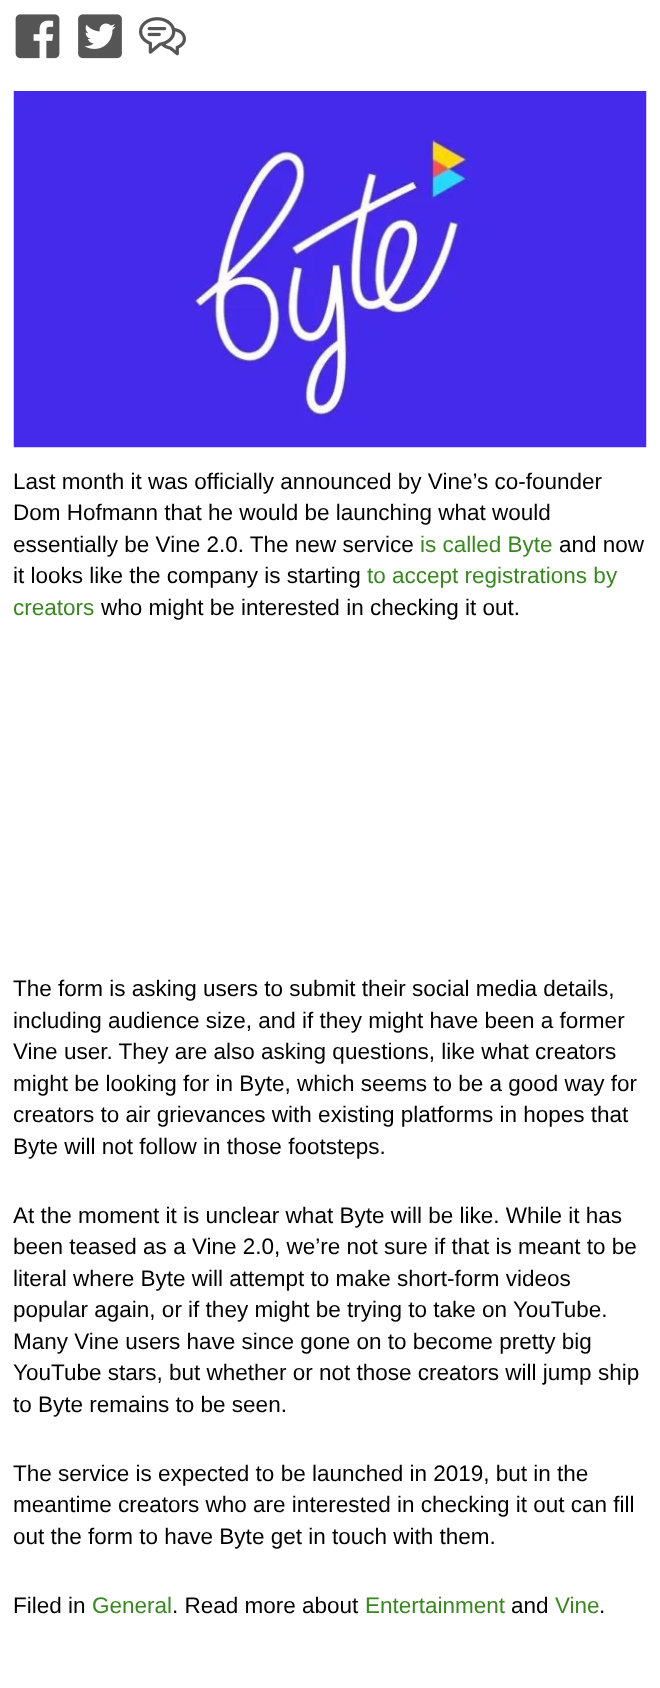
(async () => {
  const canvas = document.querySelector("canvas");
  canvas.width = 660;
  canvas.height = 1688;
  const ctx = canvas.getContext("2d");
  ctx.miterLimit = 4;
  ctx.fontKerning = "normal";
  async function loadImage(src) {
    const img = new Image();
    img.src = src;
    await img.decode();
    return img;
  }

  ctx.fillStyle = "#ffffff";
  ctx.fillRect(0, 0, 660, 1688);
  ctx.drawImage(await loadImage("img/1.png"), 15, 14, 45, 45);
  ctx.drawImage(await loadImage("img/2.png"), 78, 14, 44, 45);
  ctx.drawImage(await loadImage("img/3.png"), 139, 17, 47, 39);
  ctx.drawImage(await loadImage("img/4.png"), 13, 91, 634, 357);
  ctx.font = "22.5px Liberation Sans";
  ctx.fillStyle = "#000000";
  for (const [text, x, y] of [
    ["Last month it was officially announced by Vine’s co-founder", 13, 489],
    ["Dom Hofmann that he would be launching what would", 13, 520],
    ["essentially be Vine 2.0. The new service", 13, 552],
  ]) {
    ctx.fillText(text, x, y);
  }
  ctx.fillStyle = "#398720";
  ctx.fillText("is called Byte", 420, 552);
  ctx.fillStyle = "#000000";
  ctx.fillText("and now", 559, 552);
  ctx.fillText("it looks like the company is starting", 13, 583);
  ctx.fillStyle = "#398720";
  ctx.fillText("to accept registrations by", 367, 583);
  ctx.fillText("creators", 13, 615);
  ctx.fillStyle = "#000000";
  for (const [text, x, y] of [
    ["who might be interested in checking it out.", 101, 615],
    ["The form is asking users to submit their social media details,", 13, 996],
    ["including audience size, and if they might have been a former", 13, 1028],
    ["Vine user. They are also asking questions, like what creators", 13, 1059],
    ["might be looking for in Byte, which seems to be a good way for", 13, 1091],
    ["creators to air grievances with existing platforms in hopes that", 13, 1122],
    ["Byte will not follow in those footsteps.", 13, 1154],
    ["At the moment it is unclear what Byte will be like. While it has", 13, 1223],
    ["been teased as a Vine 2.0, we’re not sure if that is meant to be", 13, 1254],
    ["literal where Byte will attempt to make short-form videos", 13, 1286],
    ["popular again, or if they might be trying to take on YouTube.", 13, 1317],
    ["Many Vine users have since gone on to become pretty big", 13, 1349],
    ["YouTube stars, but whether or not those creators will jump ship", 13, 1380],
    ["to Byte remains to be seen.", 13, 1412],
    ["The service is expected to be launched in 2019, but in the", 13, 1481],
    ["meantime creators who are interested in checking it out can fill", 13, 1512],
    ["out the form to have Byte get in touch with them.", 13, 1544],
    ["Filed in", 13, 1613],
  ]) {
    ctx.fillText(text, x, y);
  }
  ctx.fillStyle = "#398720";
  ctx.fillText("General", 92, 1613);
  ctx.fillStyle = "#000000";
  ctx.fillText(". Read more about", 172, 1613);
  ctx.fillStyle = "#398720";
  ctx.fillText("Entertainment", 365, 1613);
  ctx.fillStyle = "#000000";
  ctx.fillText("and", 511, 1613);
  ctx.fillStyle = "#398720";
  ctx.fillText("Vine", 555, 1613);
  ctx.fillStyle = "#000000";
  ctx.fillText(".", 599, 1613);
})();
